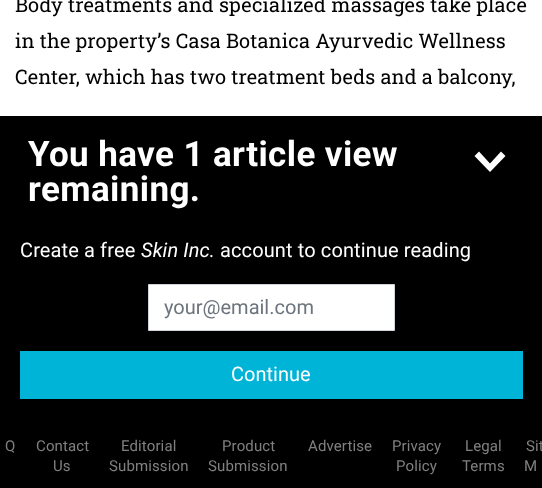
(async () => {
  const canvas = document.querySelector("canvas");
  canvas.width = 542;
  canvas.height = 488;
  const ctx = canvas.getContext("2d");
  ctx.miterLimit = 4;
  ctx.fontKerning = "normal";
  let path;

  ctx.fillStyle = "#ffffff";
  ctx.fillRect(0, 0, 542, 488);
  ctx.fillStyle = "#000000";
  ctx.fillRect(0, 116, 542, 372);
  ctx.fillStyle = "#ffffff";
  path = new Path2D("M490 172L474.5 156L479 151.5L490 163.5L501 151.5L505.5 156Z");
  ctx.fill(path, "evenodd");
  ctx.beginPath();
  ctx.rect(148.5, 284.5, 246, 46);
  ctx.fill();
  ctx.strokeStyle = "#ced4da";
  ctx.stroke();
  ctx.fillStyle = "#00b4d8";
  ctx.fillRect(20, 351, 503, 48);
  ctx.letterSpacing = "0.12px";
  ctx.font = "20px Roboto Slab";
  ctx.fillStyle = "#000000";
  for (const [text, x, y] of [
    ["Body treatments and specialized massages take place", 15, 12],
    ["in the property’s Casa Botanica Ayurvedic Wellness", 15, 48],
    ["Center, which has two treatment beds and a balcony,", 15, 84],
  ]) {
    ctx.fillText(text, x, y);
  }
  ctx.letterSpacing = "0.4px";
  ctx.font = "bold 35px Roboto";
  ctx.fillStyle = "#ffffff";
  ctx.fillText("You have 1 article view", 28, 166);
  ctx.fillText("remaining.", 28, 201);
  ctx.letterSpacing = "0.12px";
  ctx.font = "20px Roboto";
  ctx.fillText("Create a free", 20, 257);
  ctx.font = "italic 20px Roboto";
  ctx.fillText("Skin Inc.", 141, 257);
  ctx.font = "20px Roboto";
  ctx.fillText("account to continue reading", 220, 257);
  ctx.letterSpacing = "0px";
  ctx.fillStyle = "#6c757d";
  ctx.fillText("your@email.com", 164, 314);
  ctx.fillStyle = "#ffffff";
  ctx.fillText("Continue", 231, 381);
  ctx.letterSpacing = "0.12px";
  ctx.font = "15px Roboto";
  ctx.fillStyle = "#808080";
  for (const [text, x, y] of [
    ["Q", 5, 451],
    ["Contact", 36, 451],
    ["Us", 53, 471],
    ["Editorial", 121, 451],
    ["Submission", 109, 471],
    ["Product", 222, 451],
    ["Submission", 208, 471],
    ["Advertise", 308, 451],
    ["Privacy", 392, 451],
    ["Policy", 396, 471],
    ["Legal", 465, 451],
    ["Terms", 462, 471],
    ["Sit", 526, 451],
    ["M", 524, 471],
  ]) {
    ctx.fillText(text, x, y);
  }
})();
